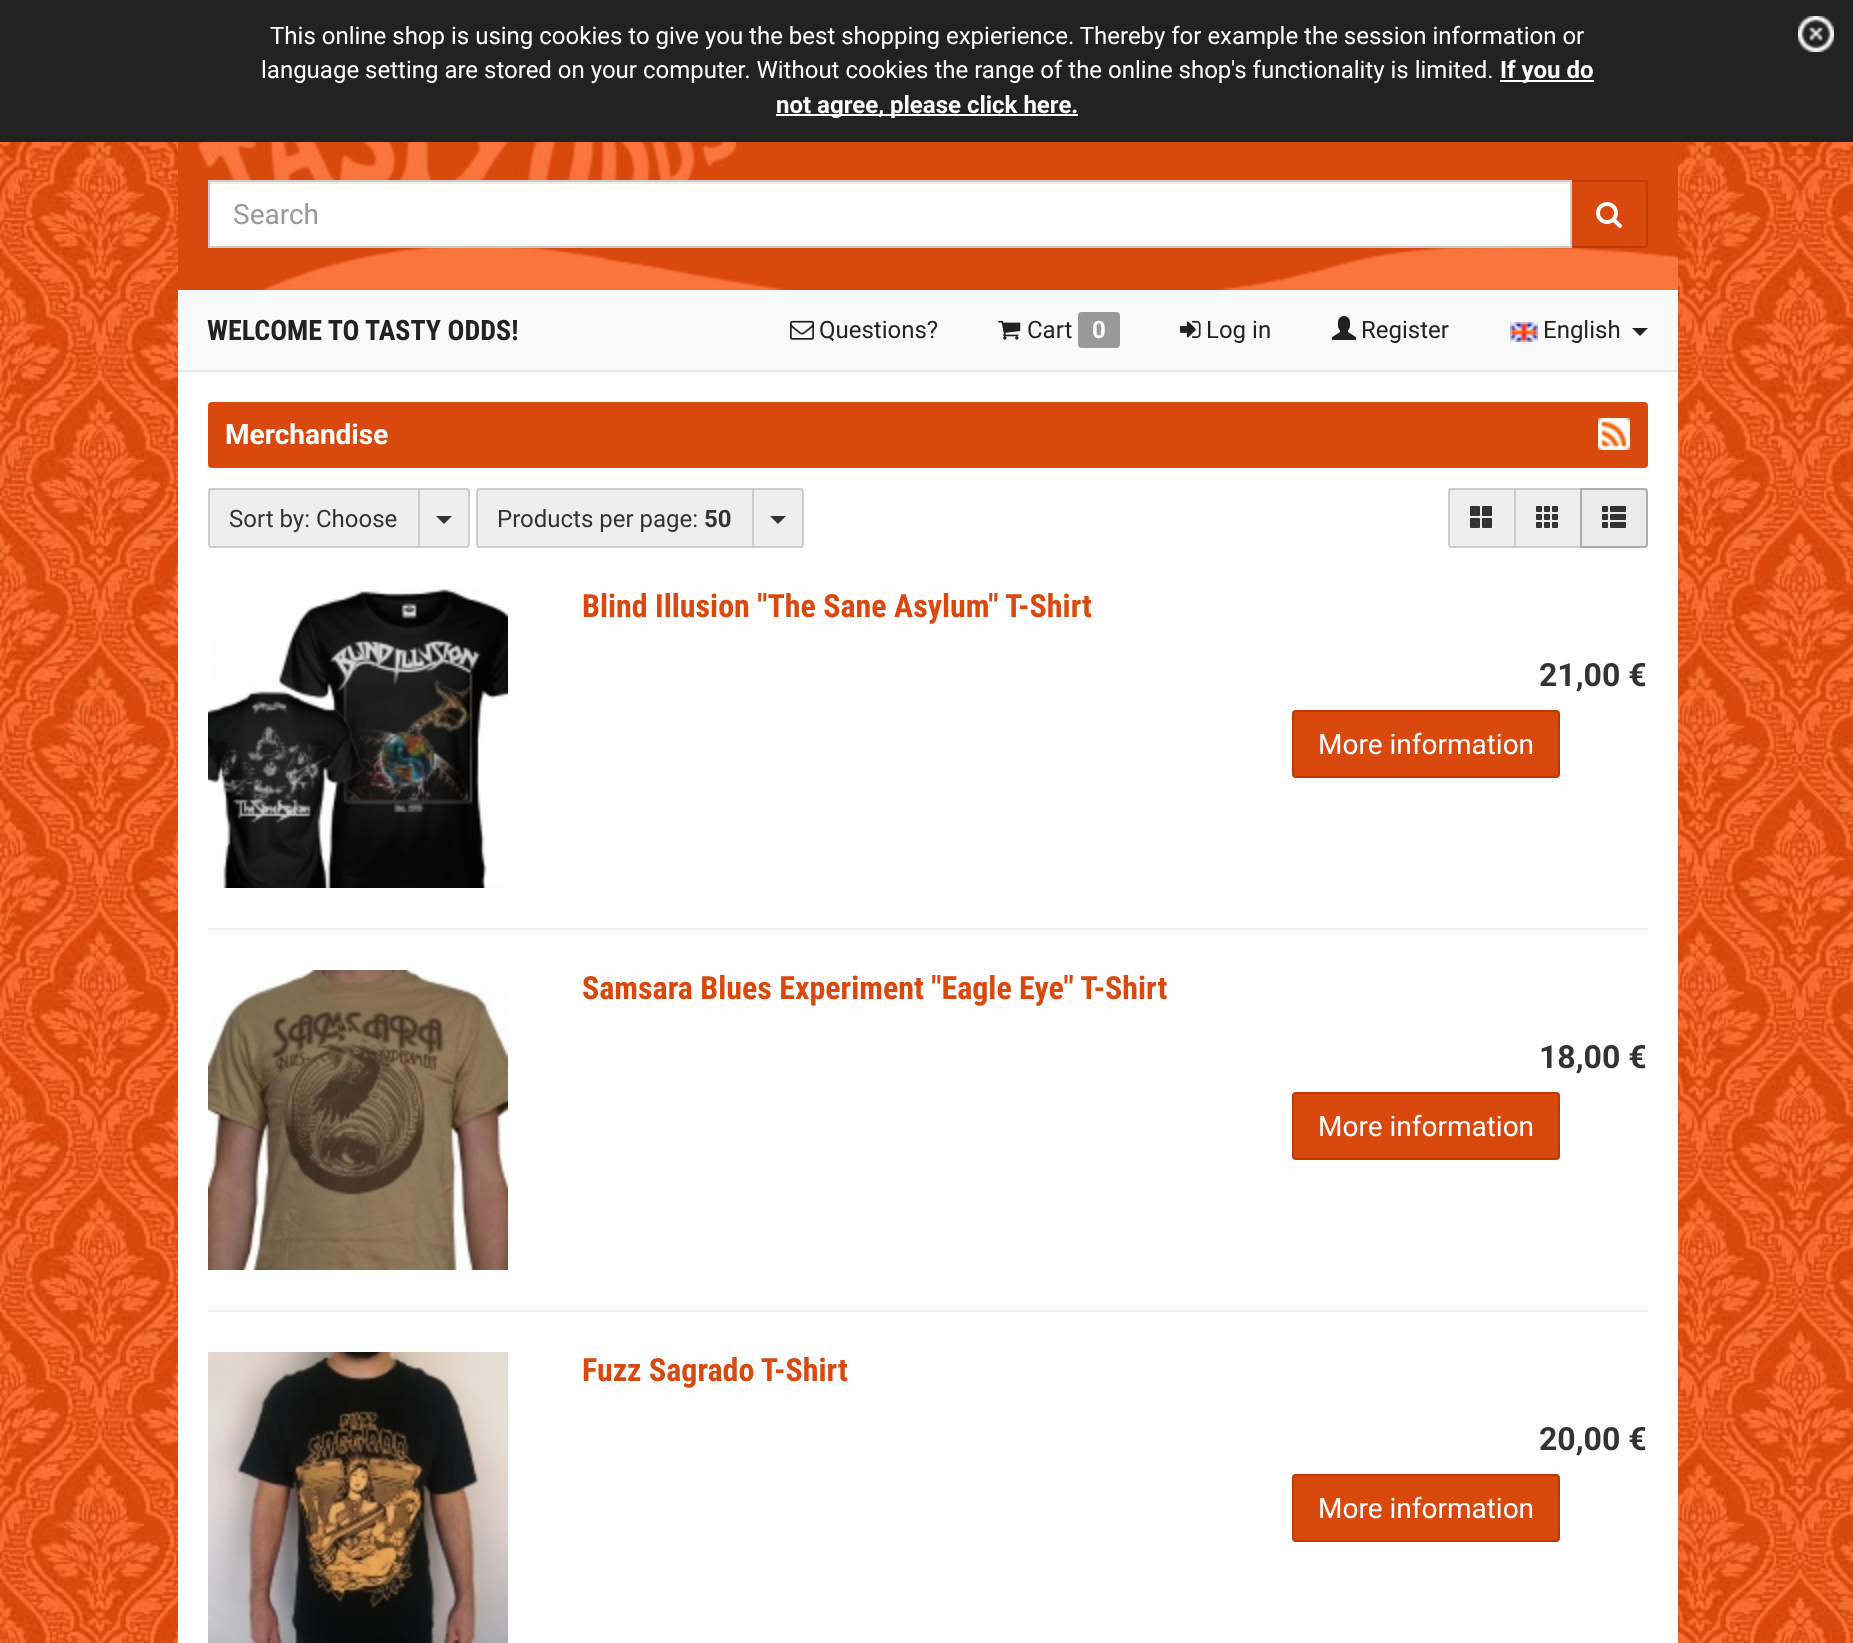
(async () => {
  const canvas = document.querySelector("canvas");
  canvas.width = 1853;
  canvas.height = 1643;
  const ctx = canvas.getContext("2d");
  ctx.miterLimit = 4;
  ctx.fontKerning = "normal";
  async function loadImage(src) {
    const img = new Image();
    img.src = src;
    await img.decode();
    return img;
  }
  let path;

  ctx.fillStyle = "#ffffff";
  ctx.fillRect(0, 0, 1853, 1643);
  ctx.drawImage(await loadImage("img/1.png"), 0, 142, 1853, 1501);
  ctx.fillStyle = "#222222";
  ctx.fillRect(0, 0, 1853, 142);
  ctx.drawImage(await loadImage("img/2.png"), 1798, 16, 36, 36);
  ctx.fillStyle = "#ffffff";
  ctx.fillRect(1500, 80, 94, 2);
  ctx.fillRect(776, 114, 302, 2);
  ctx.drawImage(await loadImage("img/3.png"), 178, 142, 1500, 148);
  ctx.fillRect(210, 184, 1360, 62);
  ctx.fillStyle = "#ececec";
  ctx.fillRect(210, 182, 1360, 2);
  ctx.fillStyle = "#d9490d";
  ctx.beginPath();
  ctx.roundRect(1571, 181, 76, 66, [0, 3, 3, 0]);
  ctx.fill();
  ctx.strokeStyle = "#bf3900";
  ctx.lineWidth = 2;
  ctx.stroke();
  ctx.strokeStyle = "#cccccc";
  ctx.strokeRect(209, 181, 1362, 66);
  ctx.drawImage(await loadImage("img/4.png"), 1596, 202, 26, 26);
  ctx.fillStyle = "#f9f9f9";
  ctx.fillRect(178, 290, 1500, 80);
  ctx.fillStyle = "#e7e7e7";
  ctx.fillRect(178, 370, 1500, 2);
  ctx.drawImage(await loadImage("img/5.png"), 790, 320, 24, 20);
  ctx.drawImage(await loadImage("img/6.png"), 998, 320, 23, 20);
  ctx.fillStyle = "#999999";
  ctx.beginPath();
  ctx.roundRect(1078, 312, 42, 36, 4);
  ctx.fill();
  ctx.drawImage(await loadImage("img/7.png"), 1180, 320, 21, 18);
  ctx.drawImage(await loadImage("img/8.png"), 1332, 316, 24, 24);
  ctx.drawImage(await loadImage("img/9.png"), 1510, 322, 28, 20);
  ctx.fillStyle = "#222222";
  path = new Path2D("M1632 328H1648L1640 336Z");
  ctx.fill(path);
  ctx.fillStyle = "#ffffff";
  ctx.fillRect(178, 372, 1500, 1271);
  ctx.fillStyle = "#d9490d";
  ctx.beginPath();
  ctx.roundRect(208, 402, 1440, 66, 4);
  ctx.fill();
  ctx.drawImage(await loadImage("img/10.png"), 1598, 418, 32, 32);
  ctx.fillStyle = "#eeeeee";
  ctx.beginPath();
  ctx.roundRect(209, 489, 210, 58, [3, 0, 0, 3]);
  ctx.fill();
  ctx.stroke();
  ctx.beginPath();
  ctx.roundRect(419, 489, 50, 58, [0, 3, 3, 0]);
  ctx.fill();
  ctx.stroke();
  ctx.fillStyle = "#333333";
  path = new Path2D("M436 516H452L444 524Z");
  ctx.fill(path);
  ctx.fillStyle = "#eeeeee";
  ctx.beginPath();
  ctx.roundRect(477, 489, 276, 58, [3, 0, 0, 3]);
  ctx.fill();
  ctx.stroke();
  ctx.beginPath();
  ctx.roundRect(753, 489, 50, 58, [0, 3, 3, 0]);
  ctx.fill();
  ctx.stroke();
  ctx.fillStyle = "#333333";
  path = new Path2D("M770 516H786L778 524Z");
  ctx.fill(path);
  ctx.fillStyle = "#eeeeee";
  ctx.beginPath();
  ctx.roundRect(1449, 489, 66, 58, [3, 0, 0, 3]);
  ctx.fill();
  ctx.stroke();
  ctx.drawImage(await loadImage("img/11.png"), 1470, 506, 22, 22);
  ctx.beginPath();
  ctx.rect(1515, 489, 66, 58);
  ctx.fill();
  ctx.stroke();
  ctx.drawImage(await loadImage("img/12.png"), 1536, 506, 22, 22);
  ctx.fillStyle = "#ebebeb";
  ctx.beginPath();
  ctx.roundRect(1581, 489, 66, 58, [0, 3, 3, 0]);
  ctx.fill();
  ctx.strokeStyle = "#adadad";
  ctx.stroke();
  ctx.drawImage(await loadImage("img/13.png"), 1602, 506, 24, 22);
  ctx.drawImage(await loadImage("img/14.png"), 208, 589, 300, 299);
  ctx.fillStyle = "#d9490d";
  ctx.beginPath();
  ctx.roundRect(1293, 711, 266, 66, 3);
  ctx.fill();
  ctx.strokeStyle = "#bf3900";
  ctx.stroke();
  ctx.fillStyle = "#eeeeee";
  ctx.fillRect(208, 928, 1440, 2);
  ctx.drawImage(await loadImage("img/15.png"), 208, 970, 300, 300);
  ctx.fillStyle = "#d9490d";
  ctx.beginPath();
  ctx.roundRect(1293, 1093, 266, 66, 3);
  ctx.fill();
  ctx.stroke();
  ctx.fillStyle = "#eeeeee";
  ctx.fillRect(208, 1310, 1440, 2);
  ctx.drawImage(await loadImage("img/16.png"), 208, 1352, 300, 291);
  ctx.fillStyle = "#d9490d";
  ctx.beginPath();
  ctx.roundRect(1293, 1475, 266, 66, 3);
  ctx.fill();
  ctx.stroke();
  ctx.font = "24px Roboto";
  ctx.fillStyle = "#ffffff";
  ctx.fillText("This online shop is using cookies to give you the best shopping expierience. Thereby for example the session information or", 270, 44);
  ctx.fillText("language setting are stored on your computer. Without cookies the range of the online shop's functionality is limited.", 261, 78);
  ctx.font = "bold 24px Roboto";
  ctx.fillText("If you do", 1500, 78);
  ctx.fillText("not agree, please click here.", 776, 113);
  ctx.font = "28px Roboto";
  ctx.fillStyle = "#999999";
  ctx.fillText("Search", 233, 224);
  ctx.font = "bold 28px Roboto Condensed";
  ctx.fillStyle = "#222222";
  ctx.fillText("WELCOME TO TASTY ODDS!", 207, 340);
  ctx.font = "24px Roboto";
  ctx.fillText("Questions?", 819, 338);
  ctx.fillText("Cart", 1027, 338);
  ctx.font = "bold 24px Roboto";
  ctx.fillStyle = "#ffffff";
  ctx.fillText("0", 1092, 338);
  ctx.font = "24px Roboto";
  ctx.fillStyle = "#222222";
  for (const [text, x, y] of [
    ["Log in", 1206, 338],
    ["Register", 1361, 338],
    ["English", 1543, 338],
  ]) {
    ctx.fillText(text, x, y);
  }
  ctx.font = "bold 28px Roboto";
  ctx.fillStyle = "#ffffff";
  ctx.fillText("Merchandise", 225, 444);
  ctx.font = "24px Roboto";
  ctx.fillStyle = "#333333";
  ctx.fillText("Sort by: Choose", 229, 527);
  ctx.fillText("Products per page:", 497, 527);
  ctx.font = "bold 24px Roboto";
  ctx.fillText("50", 704, 527);
  ctx.font = "bold 32px Roboto Condensed";
  ctx.fillStyle = "#d9490d";
  ctx.fillText("Blind Illusion \"The Sane Asylum\" T-Shirt", 582, 617);
  ctx.font = "bold 32px Roboto";
  ctx.fillStyle = "#333333";
  ctx.fillText("21,00 €", 1539, 686);
  ctx.font = "28px Roboto";
  ctx.fillStyle = "#ffffff";
  ctx.fillText("More information", 1318, 754);
  ctx.font = "bold 32px Roboto Condensed";
  ctx.fillStyle = "#d9490d";
  ctx.fillText("Samsara Blues Experiment \"Eagle Eye\" T-Shirt", 582, 999);
  ctx.font = "bold 32px Roboto";
  ctx.fillStyle = "#333333";
  ctx.fillText("18,00 €", 1539, 1068);
  ctx.font = "28px Roboto";
  ctx.fillStyle = "#ffffff";
  ctx.fillText("More information", 1318, 1136);
  ctx.font = "bold 32px Roboto Condensed";
  ctx.fillStyle = "#d9490d";
  ctx.fillText("Fuzz Sagrado T-Shirt", 582, 1381);
  ctx.font = "bold 32px Roboto";
  ctx.fillStyle = "#333333";
  ctx.fillText("20,00 €", 1539, 1450);
  ctx.font = "28px Roboto";
  ctx.fillStyle = "#ffffff";
  ctx.fillText("More information", 1318, 1518);
})();
